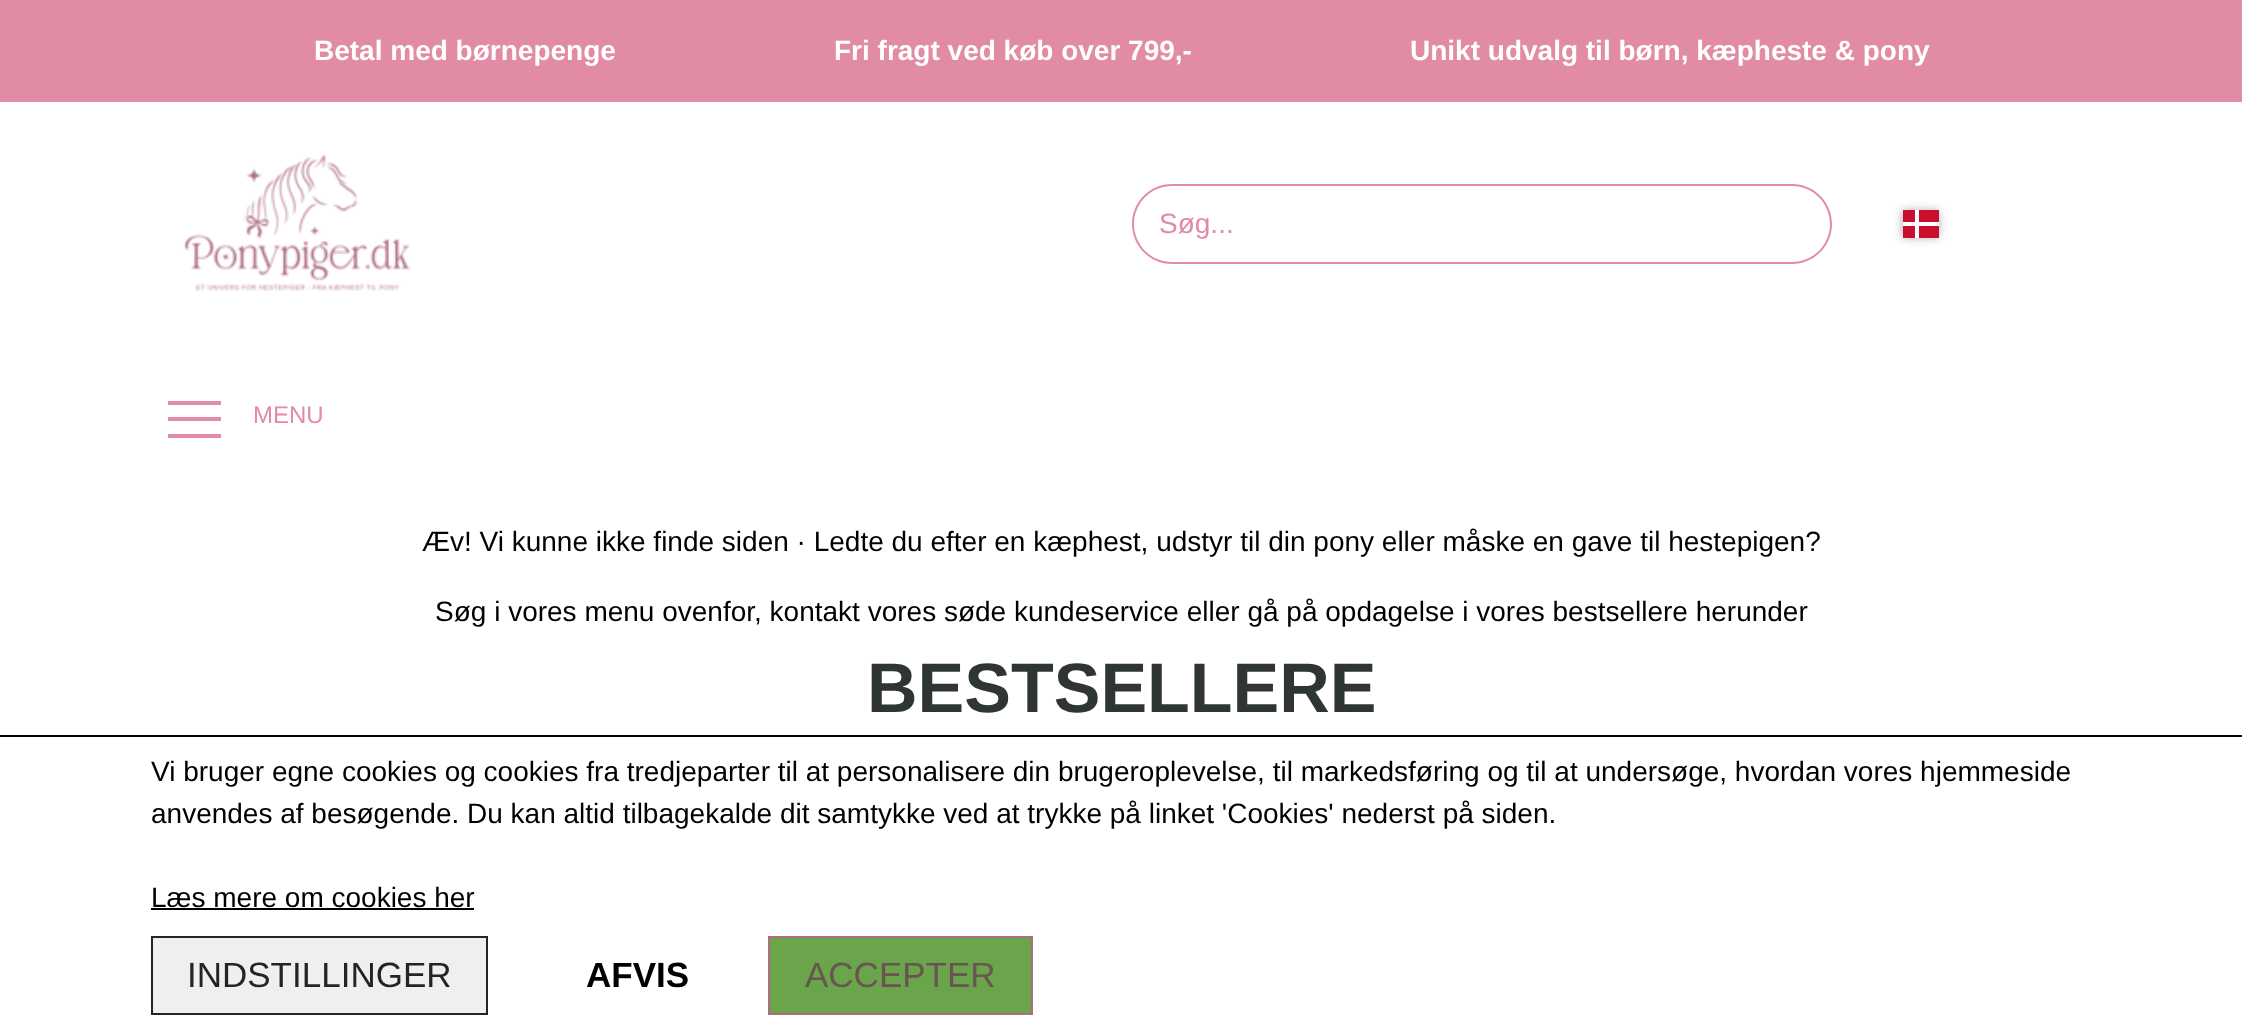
(async () => {
  const canvas = document.querySelector("canvas");
  canvas.width = 2242;
  canvas.height = 1029;
  const ctx = canvas.getContext("2d");
  ctx.miterLimit = 4;
  ctx.fontKerning = "normal";
  async function loadImage(src) {
    const img = new Image();
    img.src = src;
    await img.decode();
    return img;
  }
  let path;

  ctx.fillStyle = "#e28ba4";
  ctx.fillRect(0, 0, 2242, 1029);
  ctx.fillStyle = "#ffffff";
  ctx.fillRect(0, 102, 2242, 385);
  ctx.drawImage(await loadImage("img/1.png"), 183, 154, 228, 137);
  ctx.fillStyle = "#e28ba3";
  path = new Path2D("M1788 184H1792C1814 184 1832 202 1832 224C1832 246 1814 264 1792 264H1788ZM1788 186H1792C1813 186 1830 203 1830 224C1830 245 1813 262 1792 262H1788Z");
  ctx.fill(path, "evenodd");
  ctx.fillStyle = "#ffffff";
  ctx.beginPath();
  ctx.roundRect(1134, 186, 656, 77, [38.5, 0, 0, 38.5]);
  ctx.fill();
  ctx.fillStyle = "#e28ba3";
  path = new Path2D("M1172 184H1790V264H1172C1150 264 1132 246 1132 224C1132 202 1150 184 1172 184ZM1172 186H1790V262H1172C1151 262 1134 245 1134 224C1134 203 1151 186 1172 186Z");
  ctx.fill(path, "evenodd");
  ctx.fillStyle = "rgba(0, 0, 0, 0.3)";
  ctx.filter = "blur(4.5px)";
  ctx.beginPath();
  ctx.rect(1902, 210, 37, 28);
  ctx.fill();
  ctx.filter = "none";
  for (const [x, y, w, h, color] of [
    [1903, 210, 36, 28, "#c8102e"],
    [1915, 210, 4, 28, "#ffffff"],
    [1903, 222, 36, 4, "#ffffff"],
    [168, 401, 53, 4, "#e28ba3"],
    [168, 417, 53, 4, "#e28ba3"],
    [168, 434, 53, 4, "#e28ba3"],
    [0, 487, 2242, 248, "#ffffff"],
    [0, 737, 2242, 292, "#ffffff"],
    [0, 735, 2242, 2, "#000000"],
    [151, 908, 323, 2, "#000000"],
  ]) {
    ctx.fillStyle = color;
    ctx.fillRect(x, y, w, h);
  }
  ctx.fillStyle = "#efefef";
  ctx.beginPath();
  ctx.rect(152, 937, 335, 77);
  ctx.fill();
  ctx.strokeStyle = "#212529";
  ctx.lineWidth = 2;
  ctx.stroke();
  ctx.fillStyle = "#6ba54b";
  ctx.beginPath();
  ctx.rect(769, 937, 263, 77);
  ctx.fill();
  ctx.strokeStyle = "#af6c7e";
  ctx.stroke();
  ctx.font = "bold 28px Arimo";
  ctx.fillStyle = "#ffffff";
  for (const [text, x, y] of [
    ["Betal med børnepenge", 314, 60],
    ["Fri fragt ved køb over 799,-", 834, 60],
    ["Unikt udvalg til børn, kæpheste & pony", 1410, 60],
  ]) {
    ctx.fillText(text, x, y);
  }
  ctx.font = "28px Arimo";
  ctx.fillStyle = "#e28ba3";
  ctx.fillText("Søg...", 1159, 233);
  ctx.font = "24px Arimo";
  ctx.fillText("MENU", 253, 423);
  ctx.font = "28px Arimo";
  ctx.fillStyle = "#000000";
  ctx.fillText("Æv! Vi kunne ikke finde siden · Ledte du efter en kæphest, udstyr til din pony eller måske en gave til hestepigen?", 422, 551);
  ctx.fillText("Søg i vores menu ovenfor, kontakt vores søde kundeservice eller gå på opdagelse i vores bestsellere herunder", 435, 621);
  ctx.font = "bold 70px Arimo";
  ctx.fillStyle = "#2e3532";
  ctx.fillText("BESTSELLERE", 867, 712);
  ctx.font = "28px Arimo";
  ctx.fillStyle = "#000000";
  for (const [text, x, y] of [
    ["Vi bruger egne cookies og cookies fra tredjeparter til at personalisere din brugeroplevelse, til markedsføring og til at undersøge, hvordan vores hjemmeside", 151, 781],
    ["anvendes af besøgende. Du kan altid tilbagekalde dit samtykke ved at trykke på linket 'Cookies' nederst på siden.", 151, 823],
    ["Læs mere om cookies her", 151, 907],
  ]) {
    ctx.fillText(text, x, y);
  }
  ctx.font = "35px Arimo";
  ctx.fillStyle = "#212529";
  ctx.fillText("INDSTILLINGER", 187, 987);
  ctx.font = "bold 35px Arimo";
  ctx.fillStyle = "#000000";
  ctx.fillText("AFVIS", 586, 987);
  ctx.font = "35px Arimo";
  ctx.fillStyle = "#685451";
  ctx.fillText("ACCEPTER", 805, 987);
})();
